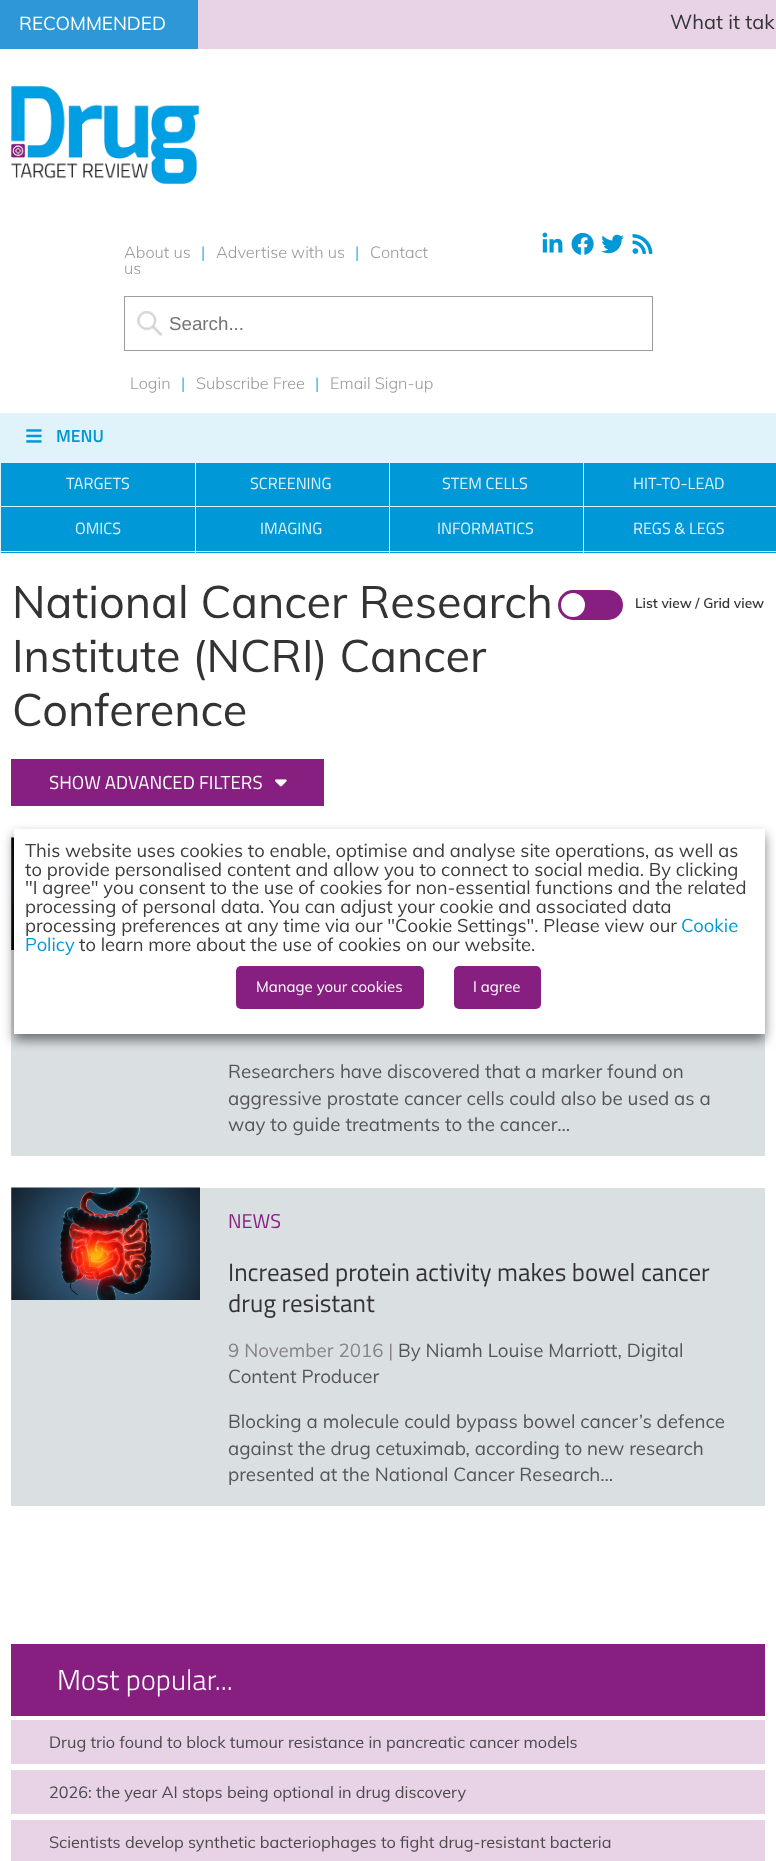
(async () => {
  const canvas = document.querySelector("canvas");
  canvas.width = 776;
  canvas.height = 1861;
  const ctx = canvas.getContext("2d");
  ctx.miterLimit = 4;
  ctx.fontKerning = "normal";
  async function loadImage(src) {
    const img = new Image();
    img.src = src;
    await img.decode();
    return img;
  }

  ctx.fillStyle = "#ffffff";
  ctx.fillRect(0, 0, 776, 1861);
  ctx.fillStyle = "#e7d2e6";
  ctx.fillRect(198, 0, 578, 49);
  ctx.fillStyle = "#2e98d6";
  ctx.fillRect(0, 0, 198, 49);
  ctx.drawImage(await loadImage("img/1.png"), 11, 86, 188, 98);
  ctx.drawImage(await loadImage("img/2.png"), 542, 232, 21, 21);
  ctx.drawImage(await loadImage("img/3.png"), 571, 232, 23, 23);
  ctx.drawImage(await loadImage("img/4.png"), 601, 234, 23, 20);
  ctx.drawImage(await loadImage("img/5.png"), 632, 234, 21, 20);
  ctx.drawImage(await loadImage("img/6.png"), 137, 311, 26, 26);
  ctx.strokeStyle = "#9d9d9d";
  ctx.strokeRect(124.5, 296.5, 528, 54);
  ctx.fillStyle = "#e0f2fa";
  ctx.fillRect(0, 413, 776, 50);
  ctx.drawImage(await loadImage("img/7.png"), 26, 429, 16, 14);
  for (const [x, y, w, h, color] of [
    [1, 463, 775, 90, "#0098d6"],
    [195, 463, 1, 90, "#e0f2fa"],
    [0, 506, 196, 1, "#e0f2fa"],
    [0, 463, 1, 45, "#e0f2fa"],
    [389, 463, 1, 90, "#e0f2fa"],
    [194, 506, 196, 1, "#e0f2fa"],
    [583, 463, 1, 90, "#e0f2fa"],
    [389, 506, 387, 1, "#e0f2fa"],
    [0, 551, 776, 1, "#e0f2fa"],
    [0, 508, 1, 45, "#e0f2fa"],
  ]) {
    ctx.fillStyle = color;
    ctx.fillRect(x, y, w, h);
  }
  ctx.fillStyle = "#871f80";
  ctx.beginPath();
  ctx.roundRect(561.5, 591.5, 60, 27, 13.5);
  ctx.fill();
  ctx.strokeStyle = "#871f80";
  ctx.lineWidth = 3;
  ctx.stroke();
  ctx.fillStyle = "#ffffff";
  ctx.beginPath();
  ctx.arc(573, 605, 13.5, 0, Math.PI * 2);
  ctx.fill();
  ctx.stroke();
  ctx.fillStyle = "#871f80";
  ctx.fillRect(11, 759, 313, 47);
  ctx.drawImage(await loadImage("img/8.png"), 275, 779, 12, 8);
  ctx.fillStyle = "#dadfe2";
  ctx.fillRect(11, 838, 754, 318);
  ctx.drawImage(await loadImage("img/9.png"), 11, 837, 3, 113);
  ctx.fillRect(11, 1188, 754, 318);
  ctx.drawImage(await loadImage("img/10.png"), 11, 1187, 189, 113);
  for (const [x, y, w, h, color] of [
    [11, 1644, 754, 72, "#871f80"],
    [11, 1720, 754, 44, "#e7d2e6"],
    [11, 1770, 754, 44, "#e7d2e6"],
    [11, 1820, 754, 41, "#e7d2e6"],
  ]) {
    ctx.fillStyle = color;
    ctx.fillRect(x, y, w, h);
  }
  ctx.fillStyle = "rgba(0, 0, 0, 0.5)";
  ctx.filter = "blur(6px)";
  ctx.beginPath();
  ctx.rect(14, 835, 751, 205);
  ctx.fill();
  ctx.filter = "none";
  ctx.fillStyle = "#ffffff";
  ctx.fillRect(14, 829, 751, 205);
  ctx.fillStyle = "#871f80";
  ctx.beginPath();
  ctx.roundRect(236, 966, 188, 43, 5);
  ctx.fill();
  ctx.beginPath();
  ctx.roundRect(454, 966, 87, 43, 5);
  ctx.fill();
  ctx.font = "18.75px Muli";
  ctx.fillStyle = "#ffffff";
  ctx.fillText("RECOMMENDED", 19, 30);
  ctx.font = "20px Muli";
  ctx.fillStyle = "#333333";
  ctx.fillText("What it tak", 670, 29);
  ctx.font = "300 16.25px Muli";
  ctx.fillStyle = "#999999";
  ctx.fillText("About us", 124, 258);
  ctx.fillStyle = "#0098d6";
  ctx.fillText("|", 201, 258);
  ctx.fillStyle = "#999999";
  ctx.fillText("Advertise with us", 216, 258);
  ctx.fillStyle = "#0098d6";
  ctx.fillText("|", 355, 258);
  ctx.fillStyle = "#999999";
  ctx.fillText("Contact", 370, 258);
  ctx.fillText("us", 124, 274);
  ctx.font = "18.75px Liberation Sans";
  ctx.fillStyle = "#757575";
  ctx.fillText("Search...", 169, 330);
  ctx.font = "300 16.25px Muli";
  ctx.fillStyle = "#999999";
  ctx.fillText("Login", 130, 389);
  ctx.fillStyle = "#0098d6";
  ctx.fillText("|", 181, 389);
  ctx.fillStyle = "#999999";
  ctx.fillText("Subscribe Free", 196, 389);
  ctx.fillStyle = "#0098d6";
  ctx.fillText("|", 315, 389);
  ctx.fillStyle = "#999999";
  ctx.fillText("Email Sign-up", 330, 389);
  ctx.font = "600 17.5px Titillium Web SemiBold";
  ctx.fillStyle = "#0098d6";
  ctx.fillText("MENU", 56, 442);
  ctx.font = "16.25px Titillium Web";
  ctx.fillStyle = "#e0f2fa";
  for (const [text, x, y] of [
    ["TARGETS", 66, 489],
    ["SCREENING", 250, 489],
    ["STEM CELLS", 442, 489],
    ["HIT-TO-LEAD", 633, 489],
    ["OMICS", 75, 534],
    ["IMAGING", 260, 534],
    ["INFORMATICS", 437, 534],
    ["REGS & LEGS", 633, 534],
  ]) {
    ctx.fillText(text, x, y);
  }
  ctx.font = "45px Muli";
  ctx.fillStyle = "#333333";
  for (const [text, x, y] of [
    ["National Cancer Research", 12, 618],
    ["Institute (NCRI) Cancer", 12, 672],
    ["Conference", 12, 726],
  ]) {
    ctx.fillText(text, x, y);
  }
  ctx.font = "600 13.75px Muli";
  ctx.fillText("List view / Grid view", 635, 608);
  ctx.font = "18.75px Titillium Web";
  ctx.fillStyle = "#ffffff";
  ctx.fillText("SHOW ADVANCED FILTERS", 49, 789);
  ctx.font = "18.75px Muli";
  ctx.fillStyle = "#555555";
  for (const [text, x, y] of [
    ["Researchers have discovered that a marker found on", 228, 1078],
    ["aggressive prostate cancer cells could also be used as a", 228, 1105],
    ["way to guide treatments to the cancer...", 228, 1131],
  ]) {
    ctx.fillText(text, x, y);
  }
  ctx.font = "20px Titillium Web";
  ctx.fillStyle = "#871f80";
  ctx.fillText("NEWS", 228, 1228);
  ctx.font = "25px Titillium Web";
  ctx.fillStyle = "#333333";
  ctx.fillText("Increased protein activity makes bowel cancer", 228, 1281);
  ctx.fillText("drug resistant", 228, 1312);
  ctx.font = "18.75px Muli";
  ctx.fillStyle = "#868484";
  ctx.fillText("9 November 2016 |", 228, 1357);
  ctx.fillStyle = "#555555";
  for (const [text, x, y] of [
    ["By Niamh Louise Marriott, Digital", 398, 1357],
    ["Content Producer", 228, 1383],
    ["Blocking a molecule could bypass bowel cancer’s defence", 228, 1428],
    ["against the drug cetuximab, according to new research", 228, 1455],
    ["presented at the National Cancer Research...", 228, 1481],
  ]) {
    ctx.fillText(text, x, y);
  }
  ctx.font = "300 28.75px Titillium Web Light";
  ctx.fillStyle = "#ffffff";
  ctx.fillText("Most popular...", 57, 1690);
  ctx.font = "16.25px Muli";
  ctx.fillStyle = "#4a4a4a";
  for (const [text, x, y] of [
    ["Drug trio found to block tumour resistance in pancreatic cancer models", 49, 1748],
    ["2026: the year AI stops being optional in drug discovery", 49, 1798],
    ["Scientists develop synthetic bacteriophages to fight drug-resistant bacteria", 49, 1848],
  ]) {
    ctx.fillText(text, x, y);
  }
  ctx.font = "18.35px Muli";
  ctx.fillStyle = "#3c3c3b";
  for (const [text, x, y] of [
    ["This website uses cookies to enable, optimise and analyse site operations, as well as", 25, 857],
    ["to provide personalised content and allow you to connect to social media. By clicking", 25, 876],
    ["\"I agree\" you consent to the use of cookies for non-essential functions and the related", 25, 894],
    ["processing of personal data. You can adjust your cookie and associated data", 25, 913],
    ["processing preferences at any time via our \"Cookie Settings\". Please view our", 25, 932],
  ]) {
    ctx.fillText(text, x, y);
  }
  ctx.fillStyle = "#0098d6";
  ctx.fillText("Cookie", 681, 932);
  ctx.fillText("Policy", 25, 951);
  ctx.fillStyle = "#3c3c3b";
  ctx.fillText("to learn more about the use of cookies on our website.", 79, 951);
  ctx.font = "15px Muli";
  ctx.fillStyle = "#ffffff";
  ctx.fillText("Manage your cookies", 256, 992);
  ctx.fillText("I agree", 473, 992);
})();
